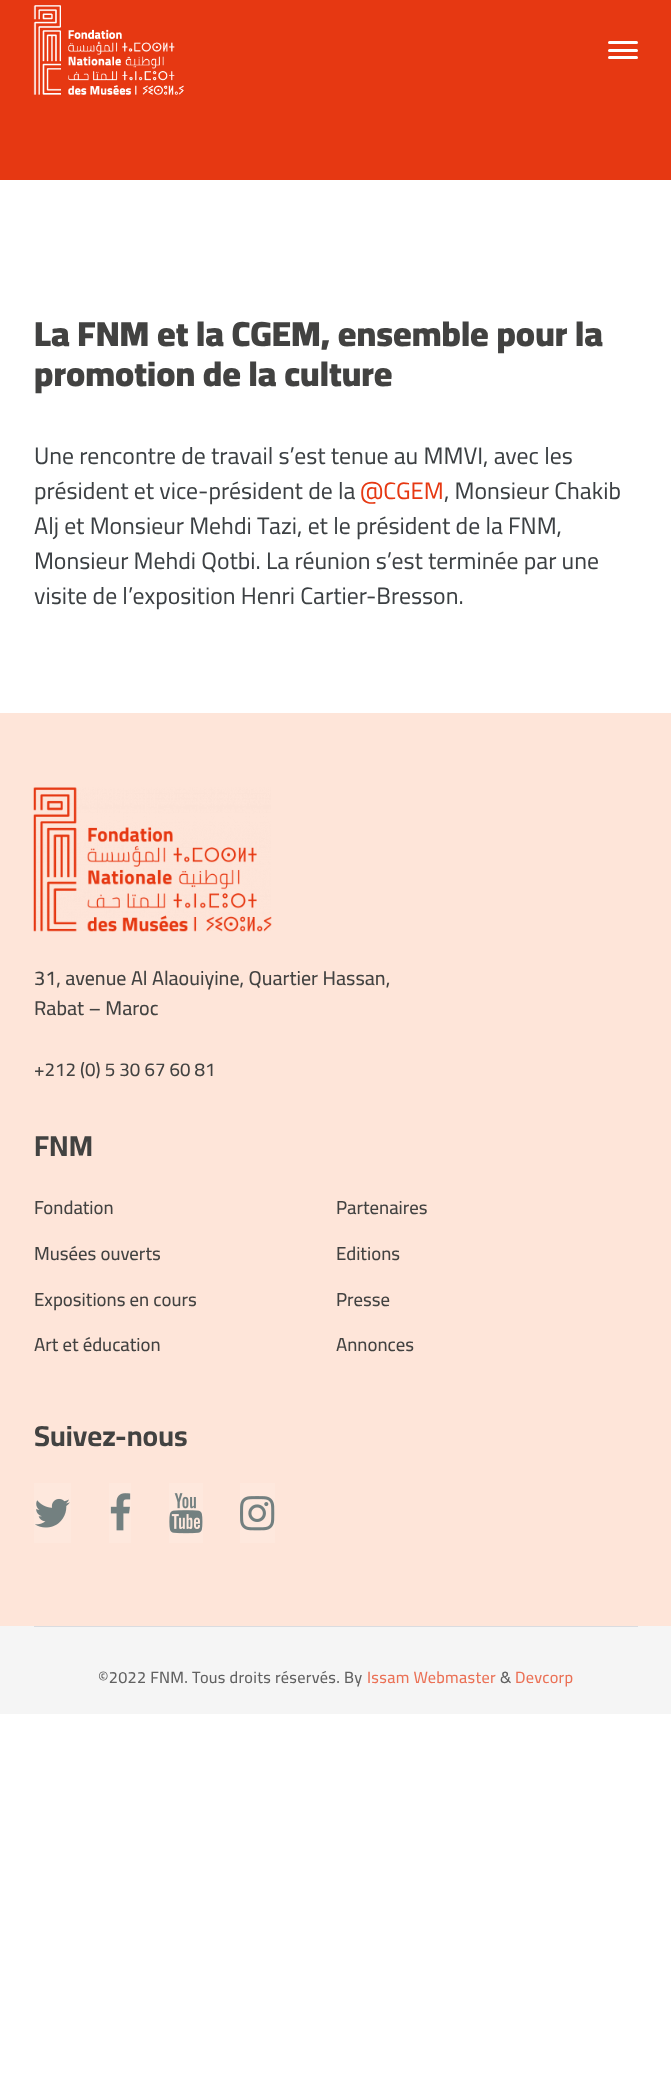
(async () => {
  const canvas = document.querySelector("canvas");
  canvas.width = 671;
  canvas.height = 2084;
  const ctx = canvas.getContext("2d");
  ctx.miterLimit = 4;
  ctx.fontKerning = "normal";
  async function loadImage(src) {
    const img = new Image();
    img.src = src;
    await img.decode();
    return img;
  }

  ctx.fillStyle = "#ffffff";
  ctx.fillRect(0, 0, 671, 2084);
  ctx.fillStyle = "#e63812";
  ctx.fillRect(0, 0, 671, 180);
  ctx.drawImage(await loadImage("img/1.png"), 33, 5, 151, 90);
  ctx.fillStyle = "#ffffff";
  ctx.beginPath();
  ctx.roundRect(608, 41, 30, 3, 1.5);
  ctx.fill();
  ctx.beginPath();
  ctx.roundRect(608, 49, 30, 3, 1.5);
  ctx.fill();
  ctx.beginPath();
  ctx.roundRect(608, 56, 30, 3, 1.5);
  ctx.fill();
  ctx.fillStyle = "#fee5d9";
  ctx.fillRect(0, 713, 671, 913);
  ctx.drawImage(await loadImage("img/2.png"), 33, 787, 239, 145);
  ctx.fillStyle = "#fee8dd";
  ctx.fillRect(34, 1483, 37, 60);
  ctx.drawImage(await loadImage("img/3.png"), 35, 1498, 35, 30);
  ctx.fillRect(109, 1483, 22, 60);
  ctx.drawImage(await loadImage("img/4.png"), 110, 1493, 21, 38);
  ctx.fillRect(169, 1483, 34, 60);
  ctx.drawImage(await loadImage("img/5.png"), 169, 1493, 34, 41);
  ctx.fillRect(240, 1483, 35, 60);
  ctx.drawImage(await loadImage("img/6.png"), 240, 1496, 35, 35);
  ctx.fillStyle = "#f5f5f5";
  ctx.fillRect(0, 1626, 671, 88);
  ctx.fillStyle = "#dadce0";
  ctx.fillRect(34, 1626, 604, 1);
  ctx.font = "900 35px Cairo";
  ctx.fillStyle = "#424241";
  ctx.fillText("La FNM et la CGEM, ensemble pour la", 34, 346);
  ctx.fillText("promotion de la culture", 34, 386);
  ctx.font = "23.75px Cairo";
  ctx.fillStyle = "#3c4043";
  ctx.fillText("Une rencontre de travail s’est tenue au MMVI, avec les", 34, 464);
  ctx.fillText("président et vice-président de la", 34, 499);
  ctx.fillStyle = "#e63812";
  ctx.fillText("@CGEM", 360, 499);
  ctx.fillStyle = "#3c4043";
  for (const [text, x, y] of [
    [", Monsieur Chakib", 444, 499],
    ["Alj et Monsieur Mehdi Tazi, et le président de la FNM,", 34, 534],
    ["Monsieur Mehdi Qotbi. La réunion s’est terminée par une", 34, 569],
    ["visite de l’exposition Henri Cartier-Bresson.", 34, 604],
  ]) {
    ctx.fillText(text, x, y);
  }
  ctx.font = "500 20px Cairo";
  ctx.fillStyle = "#424241";
  ctx.fillText("31, avenue Al Alaouiyine, Quartier Hassan,", 34, 985);
  ctx.fillText("Rabat – Maroc", 34, 1015);
  ctx.font = "500 18.75px Cairo";
  ctx.fillText("+212 (0) 5 30 67 60 81", 34, 1076);
  ctx.font = "bold 28.75px Cairo";
  ctx.fillText("FNM", 34, 1156);
  ctx.font = "500 18.75px Cairo";
  for (const [text, x, y] of [
    ["Fondation", 34, 1214],
    ["Partenaires", 336, 1214],
    ["Musées ouverts", 34, 1260],
    ["Editions", 336, 1260],
    ["Expositions en cours", 34, 1306],
    ["Presse", 336, 1306],
    ["Art et éducation", 34, 1351],
    ["Annonces", 336, 1351],
  ]) {
    ctx.fillText(text, x, y);
  }
  ctx.font = "bold 28.75px Cairo";
  ctx.fillText("Suivez-nous", 34, 1446);
  ctx.letterSpacing = "0.3px";
  ctx.font = "500 16.25px Cairo";
  ctx.fillStyle = "#616161";
  ctx.fillText("©2022 FNM. Tous droits réservés. By", 98, 1683);
  ctx.fillStyle = "#eb7156";
  ctx.fillText("Issam Webmaster", 367, 1683);
  ctx.fillStyle = "#616161";
  ctx.fillText("&", 500, 1683);
  ctx.fillStyle = "#eb7156";
  ctx.fillText("Devcorp", 515, 1683);
})();
